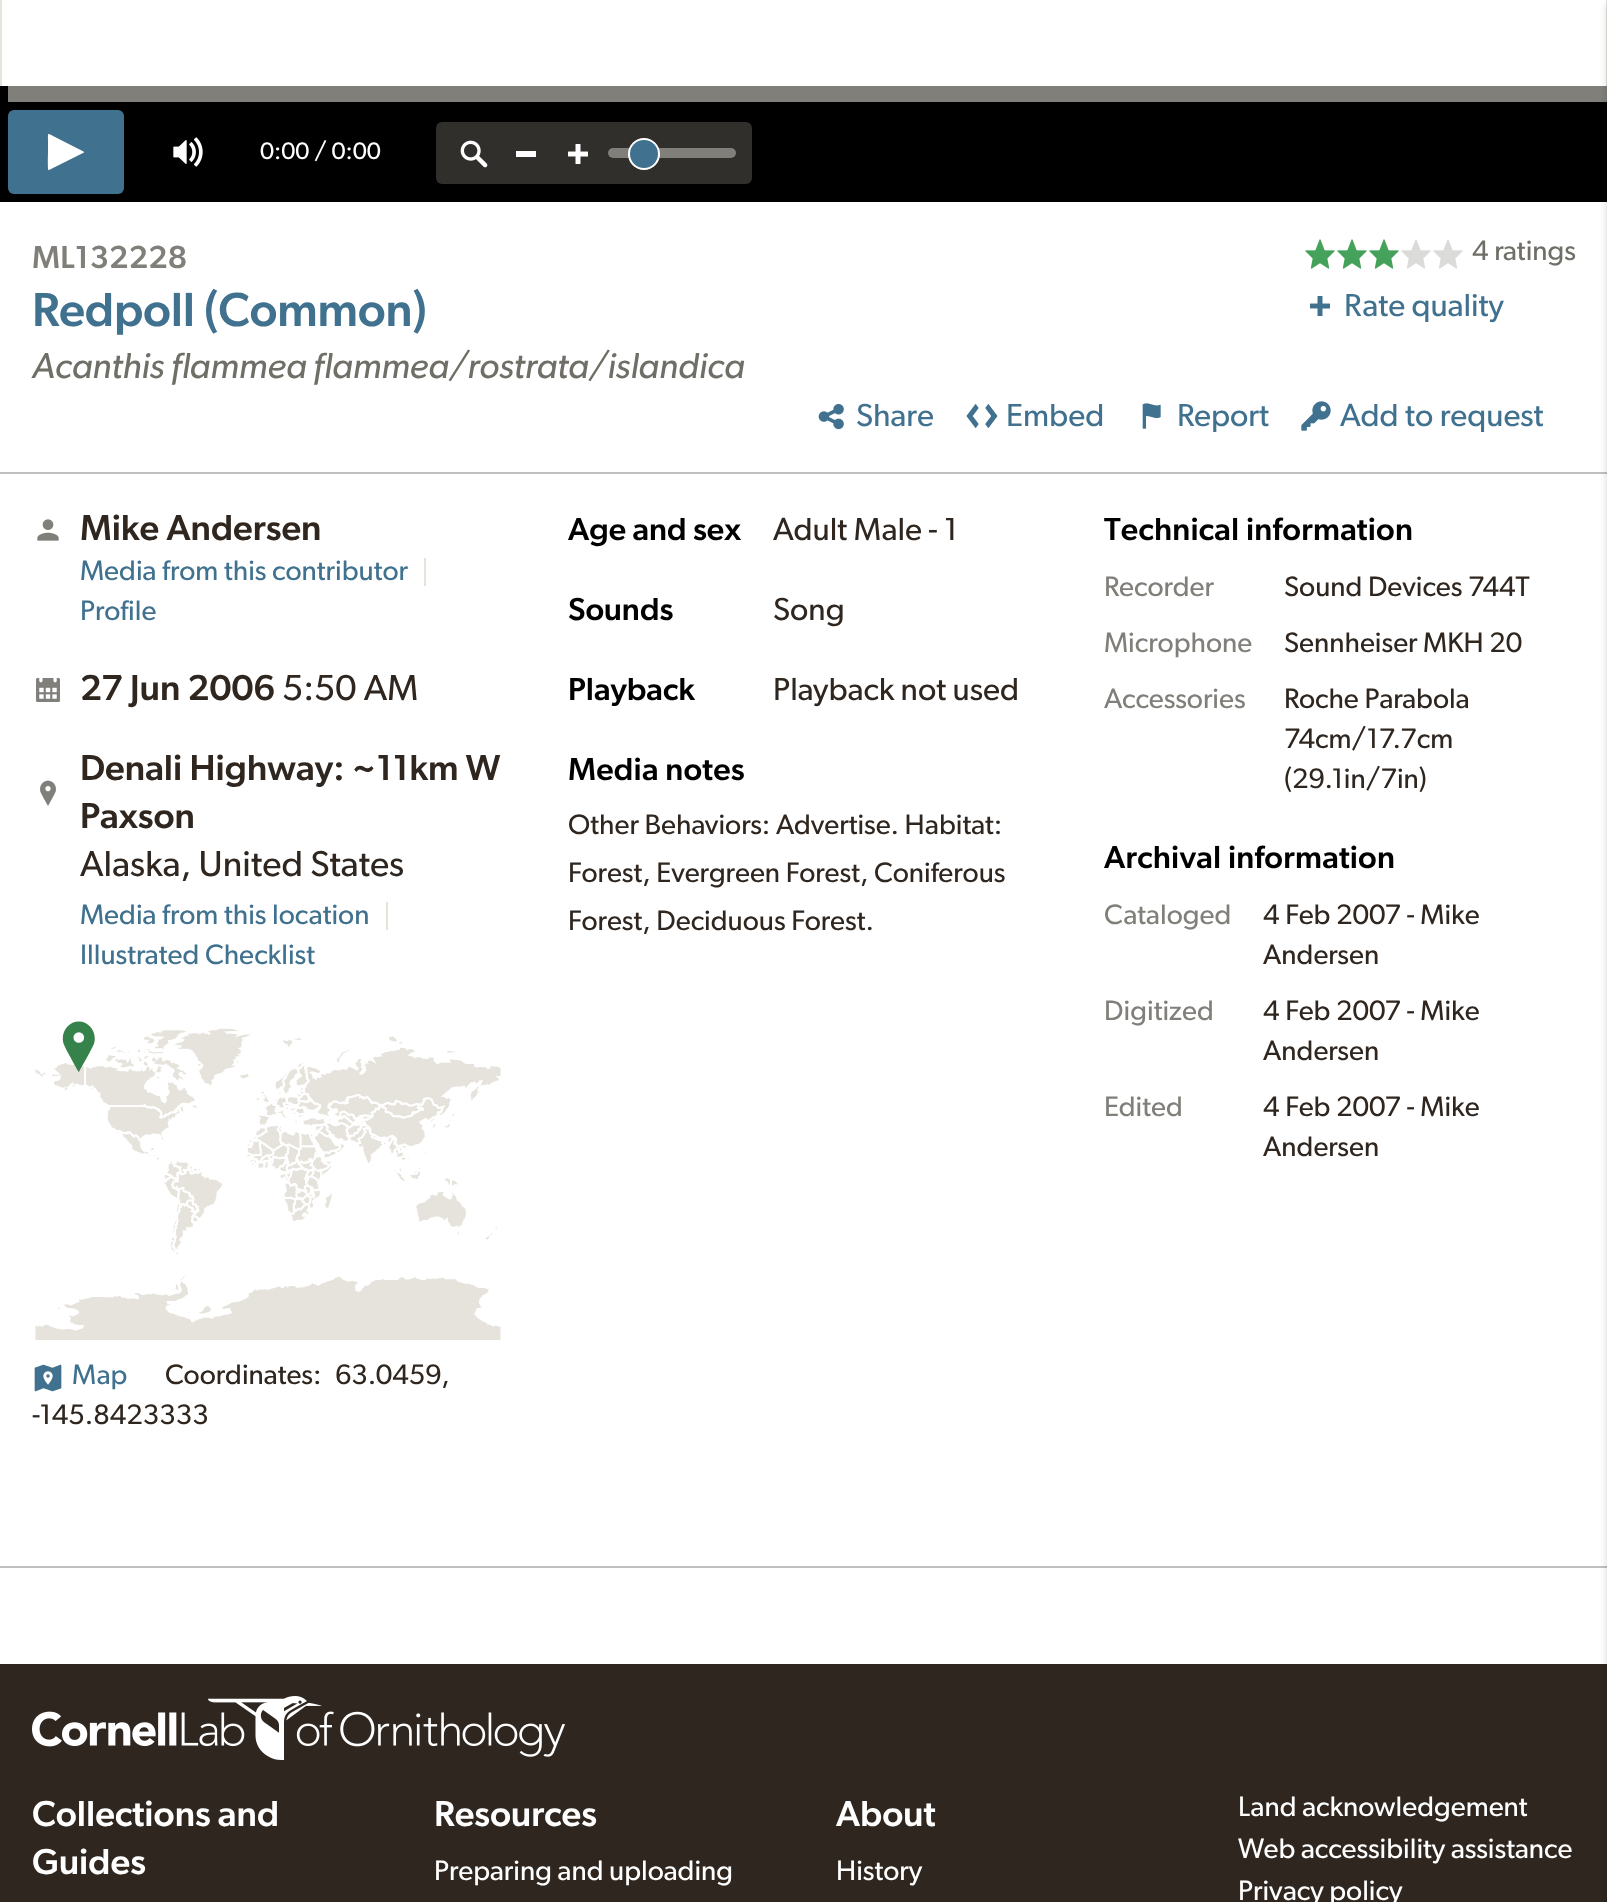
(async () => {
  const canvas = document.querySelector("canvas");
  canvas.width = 1607;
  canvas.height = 1902;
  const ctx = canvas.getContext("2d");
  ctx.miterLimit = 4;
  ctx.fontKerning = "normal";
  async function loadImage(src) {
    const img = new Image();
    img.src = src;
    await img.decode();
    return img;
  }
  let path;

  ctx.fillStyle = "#ffffff";
  ctx.fillRect(0, 0, 1607, 1902);
  for (const [x, y, w, h, color] of [
    [1606, 0, 1, 86, "#e5e3dc"],
    [0, 0, 2, 86, "#e5e3dc"],
    [8, 86, 1599, 16, "#817f79"],
    [0, 86, 8, 16, "#000000"],
    [0, 102, 1607, 100, "#000000"],
  ]) {
    ctx.fillStyle = color;
    ctx.fillRect(x, y, w, h);
  }
  ctx.fillStyle = "#40718f";
  ctx.beginPath();
  ctx.roundRect(8, 110, 116, 84, 6);
  ctx.fill();
  ctx.fillStyle = "#ffffff";
  path = new Path2D("M48.5 170C47.5 169.5 48 154 48 152V140.5C48 132 47 133 55 137L83.5 151.5L84 152V152.5L49 170Z");
  ctx.fill(path, "evenodd");
  ctx.drawImage(await loadImage("img/1.png"), 173, 137, 30, 30);
  ctx.fillStyle = "#302f2c";
  ctx.beginPath();
  ctx.roundRect(436, 122, 316, 62, 6);
  ctx.fill();
  ctx.drawImage(await loadImage("img/2.png"), 460, 140, 28, 28);
  ctx.fillStyle = "#ffffff";
  ctx.fillRect(516, 151, 20, 6);
  ctx.drawImage(await loadImage("img/3.png"), 568, 144, 20, 20);
  ctx.fillStyle = "#817f79";
  ctx.beginPath();
  ctx.roundRect(608, 148, 128, 10, 5);
  ctx.fill();
  ctx.fillStyle = "#40718f";
  ctx.beginPath();
  ctx.arc(644, 154, 15, 0, Math.PI * 2);
  ctx.fill();
  ctx.strokeStyle = "#ffffff";
  ctx.lineWidth = 2;
  ctx.stroke();
  ctx.drawImage(await loadImage("img/4.png"), 1305, 239, 30, 30);
  ctx.drawImage(await loadImage("img/4.png"), 1337, 239, 30, 30);
  ctx.drawImage(await loadImage("img/4.png"), 1369, 239, 30, 30);
  ctx.drawImage(await loadImage("img/5.png"), 1401, 239, 30, 30);
  ctx.drawImage(await loadImage("img/5.png"), 1433, 239, 30, 30);
  ctx.drawImage(await loadImage("img/6.png"), 1310, 296, 20, 20);
  ctx.drawImage(await loadImage("img/7.png"), 818, 404, 26, 26);
  ctx.drawImage(await loadImage("img/8.png"), 966, 404, 32, 24);
  ctx.drawImage(await loadImage("img/9.png"), 1142, 403, 19, 26);
  ctx.drawImage(await loadImage("img/10.png"), 1301, 401, 30, 30);
  ctx.fillStyle = "#bfbfbf";
  ctx.fillRect(0, 472, 1607, 2);
  ctx.drawImage(await loadImage("img/11.png"), 37, 519, 22, 22);
  ctx.fillStyle = "#e5e3dc";
  ctx.fillRect(424, 558, 2, 28);
  ctx.drawImage(await loadImage("img/12.png"), 36, 678, 24, 24);
  ctx.drawImage(await loadImage("img/13.png"), 40, 780, 16, 26);
  ctx.fillRect(386, 902, 2, 28);
  ctx.drawImage(await loadImage("img/14.png"), 35, 1021, 466, 319);
  ctx.drawImage(await loadImage("img/15.png"), 34, 1364, 28, 28);
  ctx.fillStyle = "#bfbfbf";
  ctx.fillRect(0, 1566, 1607, 2);
  ctx.fillStyle = "#2e261f";
  ctx.fillRect(0, 1664, 1607, 238);
  ctx.fillStyle = "rgba(0, 0, 0, 0.2)";
  ctx.filter = "blur(4px)";
  ctx.beginPath();
  ctx.rect(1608, 4, 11, 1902);
  ctx.fill();
  ctx.filter = "none";
  ctx.drawImage(await loadImage("img/16.png"), 32, 1696, 533, 64);
  ctx.font = "24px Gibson";
  ctx.fillStyle = "#ffffff";
  ctx.fillText("0:00 / 0:00", 260, 159);
  ctx.letterSpacing = "0.2px";
  ctx.font = "500 32px Gibson";
  ctx.fillStyle = "#817f79";
  ctx.fillText("ML132228", 32, 268);
  ctx.letterSpacing = "-0.3px";
  ctx.font = "500 48px Gibson";
  ctx.fillStyle = "#40718f";
  ctx.fillText("Redpoll (Common)", 32, 326);
  ctx.letterSpacing = "0px";
  ctx.font = "italic 36.2px Gibson";
  ctx.fillStyle = "#6f6e67";
  ctx.fillText("Acanthis flammea flammea/rostrata/islandica", 32, 378);
  ctx.font = "28.2px Gibson";
  ctx.fillText("4 ratings", 1472, 260);
  ctx.font = "32px Gibson";
  ctx.fillStyle = "#40718f";
  for (const [text, x, y] of [
    ["Rate quality", 1344, 316],
    ["Share", 856, 426],
    ["Embed", 1006, 426],
    ["Report", 1177, 426],
    ["Add to request", 1340, 426],
  ]) {
    ctx.fillText(text, x, y);
  }
  ctx.font = "500 36.2px Gibson";
  ctx.fillStyle = "#2e261f";
  ctx.fillText("Mike Andersen", 80, 540);
  ctx.font = "28.2px Gibson";
  ctx.fillStyle = "#40718f";
  ctx.fillText("Media from this contributor", 80, 580);
  ctx.fillText("Profile", 80, 620);
  ctx.font = "500 36.2px Gibson";
  ctx.fillStyle = "#2e261f";
  ctx.fillText("27 Jun 2006", 80, 700);
  ctx.font = "36.2px Gibson";
  ctx.fillText("5:50 AM", 282, 700);
  ctx.font = "500 36.2px Gibson";
  ctx.fillText("Denali Highway: ~11km W", 80, 780);
  ctx.fillText("Paxson", 80, 828);
  ctx.font = "36.2px Gibson";
  ctx.fillText("Alaska, United States", 80, 876);
  ctx.font = "28.2px Gibson";
  ctx.fillStyle = "#40718f";
  for (const [text, x, y] of [
    ["Media from this location", 80, 924],
    ["Illustrated Checklist", 80, 964],
    ["Map", 72, 1384],
  ]) {
    ctx.fillText(text, x, y);
  }
  ctx.fillStyle = "#2e261f";
  for (const [text, x, y] of [
    ["Coordinates:", 165, 1384],
    ["63.0459,", 335, 1384],
    ["-145.8423333", 32, 1424],
  ]) {
    ctx.fillText(text, x, y);
  }
  ctx.font = "500 32px Gibson";
  ctx.fillStyle = "#000000";
  ctx.fillText("Age and sex", 568, 540);
  ctx.font = "32px Gibson";
  ctx.fillStyle = "#2e261f";
  ctx.fillText("Adult Male - 1", 773, 540);
  ctx.font = "500 32px Gibson";
  ctx.fillStyle = "#000000";
  ctx.fillText("Sounds", 568, 620);
  ctx.font = "32px Gibson";
  ctx.fillStyle = "#2e261f";
  ctx.fillText("Song", 773, 620);
  ctx.font = "500 32px Gibson";
  ctx.fillStyle = "#000000";
  ctx.fillText("Playback", 568, 700);
  ctx.font = "32px Gibson";
  ctx.fillStyle = "#2e261f";
  ctx.fillText("Playback not used", 773, 700);
  ctx.letterSpacing = "0.2px";
  ctx.font = "500 32px Gibson";
  ctx.fillStyle = "#000000";
  ctx.fillText("Media notes", 568, 780);
  ctx.letterSpacing = "0px";
  ctx.font = "28.2px Gibson";
  ctx.fillStyle = "#2e261f";
  for (const [text, x, y] of [
    ["Other Behaviors: Advertise. Habitat:", 568, 834],
    ["Forest, Evergreen Forest, Coniferous", 568, 882],
    ["Forest, Deciduous Forest.", 568, 930],
  ]) {
    ctx.fillText(text, x, y);
  }
  ctx.letterSpacing = "0.2px";
  ctx.font = "500 32px Gibson";
  ctx.fillStyle = "#000000";
  ctx.fillText("Technical information", 1104, 540);
  ctx.letterSpacing = "0px";
  ctx.font = "28.2px Gibson";
  ctx.fillStyle = "#817f79";
  ctx.fillText("Recorder", 1104, 596);
  ctx.fillStyle = "#2e261f";
  ctx.fillText("Sound Devices 744T", 1284, 596);
  ctx.fillStyle = "#817f79";
  ctx.fillText("Microphone", 1104, 652);
  ctx.fillStyle = "#2e261f";
  ctx.fillText("Sennheiser MKH 20", 1284, 652);
  ctx.fillStyle = "#817f79";
  ctx.fillText("Accessories", 1104, 708);
  ctx.fillStyle = "#2e261f";
  for (const [text, x, y] of [
    ["Roche Parabola", 1284, 708],
    ["74cm/17.7cm", 1284, 748],
    ["(29.1in/7in)", 1284, 788],
  ]) {
    ctx.fillText(text, x, y);
  }
  ctx.letterSpacing = "0.2px";
  ctx.font = "500 32px Gibson";
  ctx.fillStyle = "#000000";
  ctx.fillText("Archival information", 1104, 868);
  ctx.letterSpacing = "0px";
  ctx.font = "28.2px Gibson";
  ctx.fillStyle = "#817f79";
  ctx.fillText("Cataloged", 1104, 924);
  ctx.fillStyle = "#2e261f";
  ctx.fillText("4 Feb 2007 - Mike", 1263, 924);
  ctx.fillText("Andersen", 1263, 964);
  ctx.fillStyle = "#817f79";
  ctx.fillText("Digitized", 1104, 1020);
  ctx.fillStyle = "#2e261f";
  ctx.fillText("4 Feb 2007 - Mike", 1263, 1020);
  ctx.fillText("Andersen", 1263, 1060);
  ctx.fillStyle = "#817f79";
  ctx.fillText("Edited", 1104, 1116);
  ctx.fillStyle = "#2e261f";
  ctx.fillText("4 Feb 2007 - Mike", 1263, 1116);
  ctx.fillText("Andersen", 1263, 1156);
  ctx.font = "500 36.2px Gibson";
  ctx.fillStyle = "#ffffff";
  for (const [text, x, y] of [
    ["Collections and", 32, 1826],
    ["Guides", 32, 1874],
    ["Resources", 434, 1826],
  ]) {
    ctx.fillText(text, x, y);
  }
  ctx.font = "28.2px Gibson";
  ctx.fillText("Preparing and uploading", 434, 1880);
  ctx.font = "500 36.2px Gibson";
  ctx.fillText("About", 836, 1826);
  ctx.font = "28.2px Gibson";
  for (const [text, x, y] of [
    ["History", 836, 1880],
    ["Land acknowledgement", 1238, 1816],
    ["Web accessibility assistance", 1238, 1858],
    ["Privacy policy", 1238, 1900],
  ]) {
    ctx.fillText(text, x, y);
  }
})();
